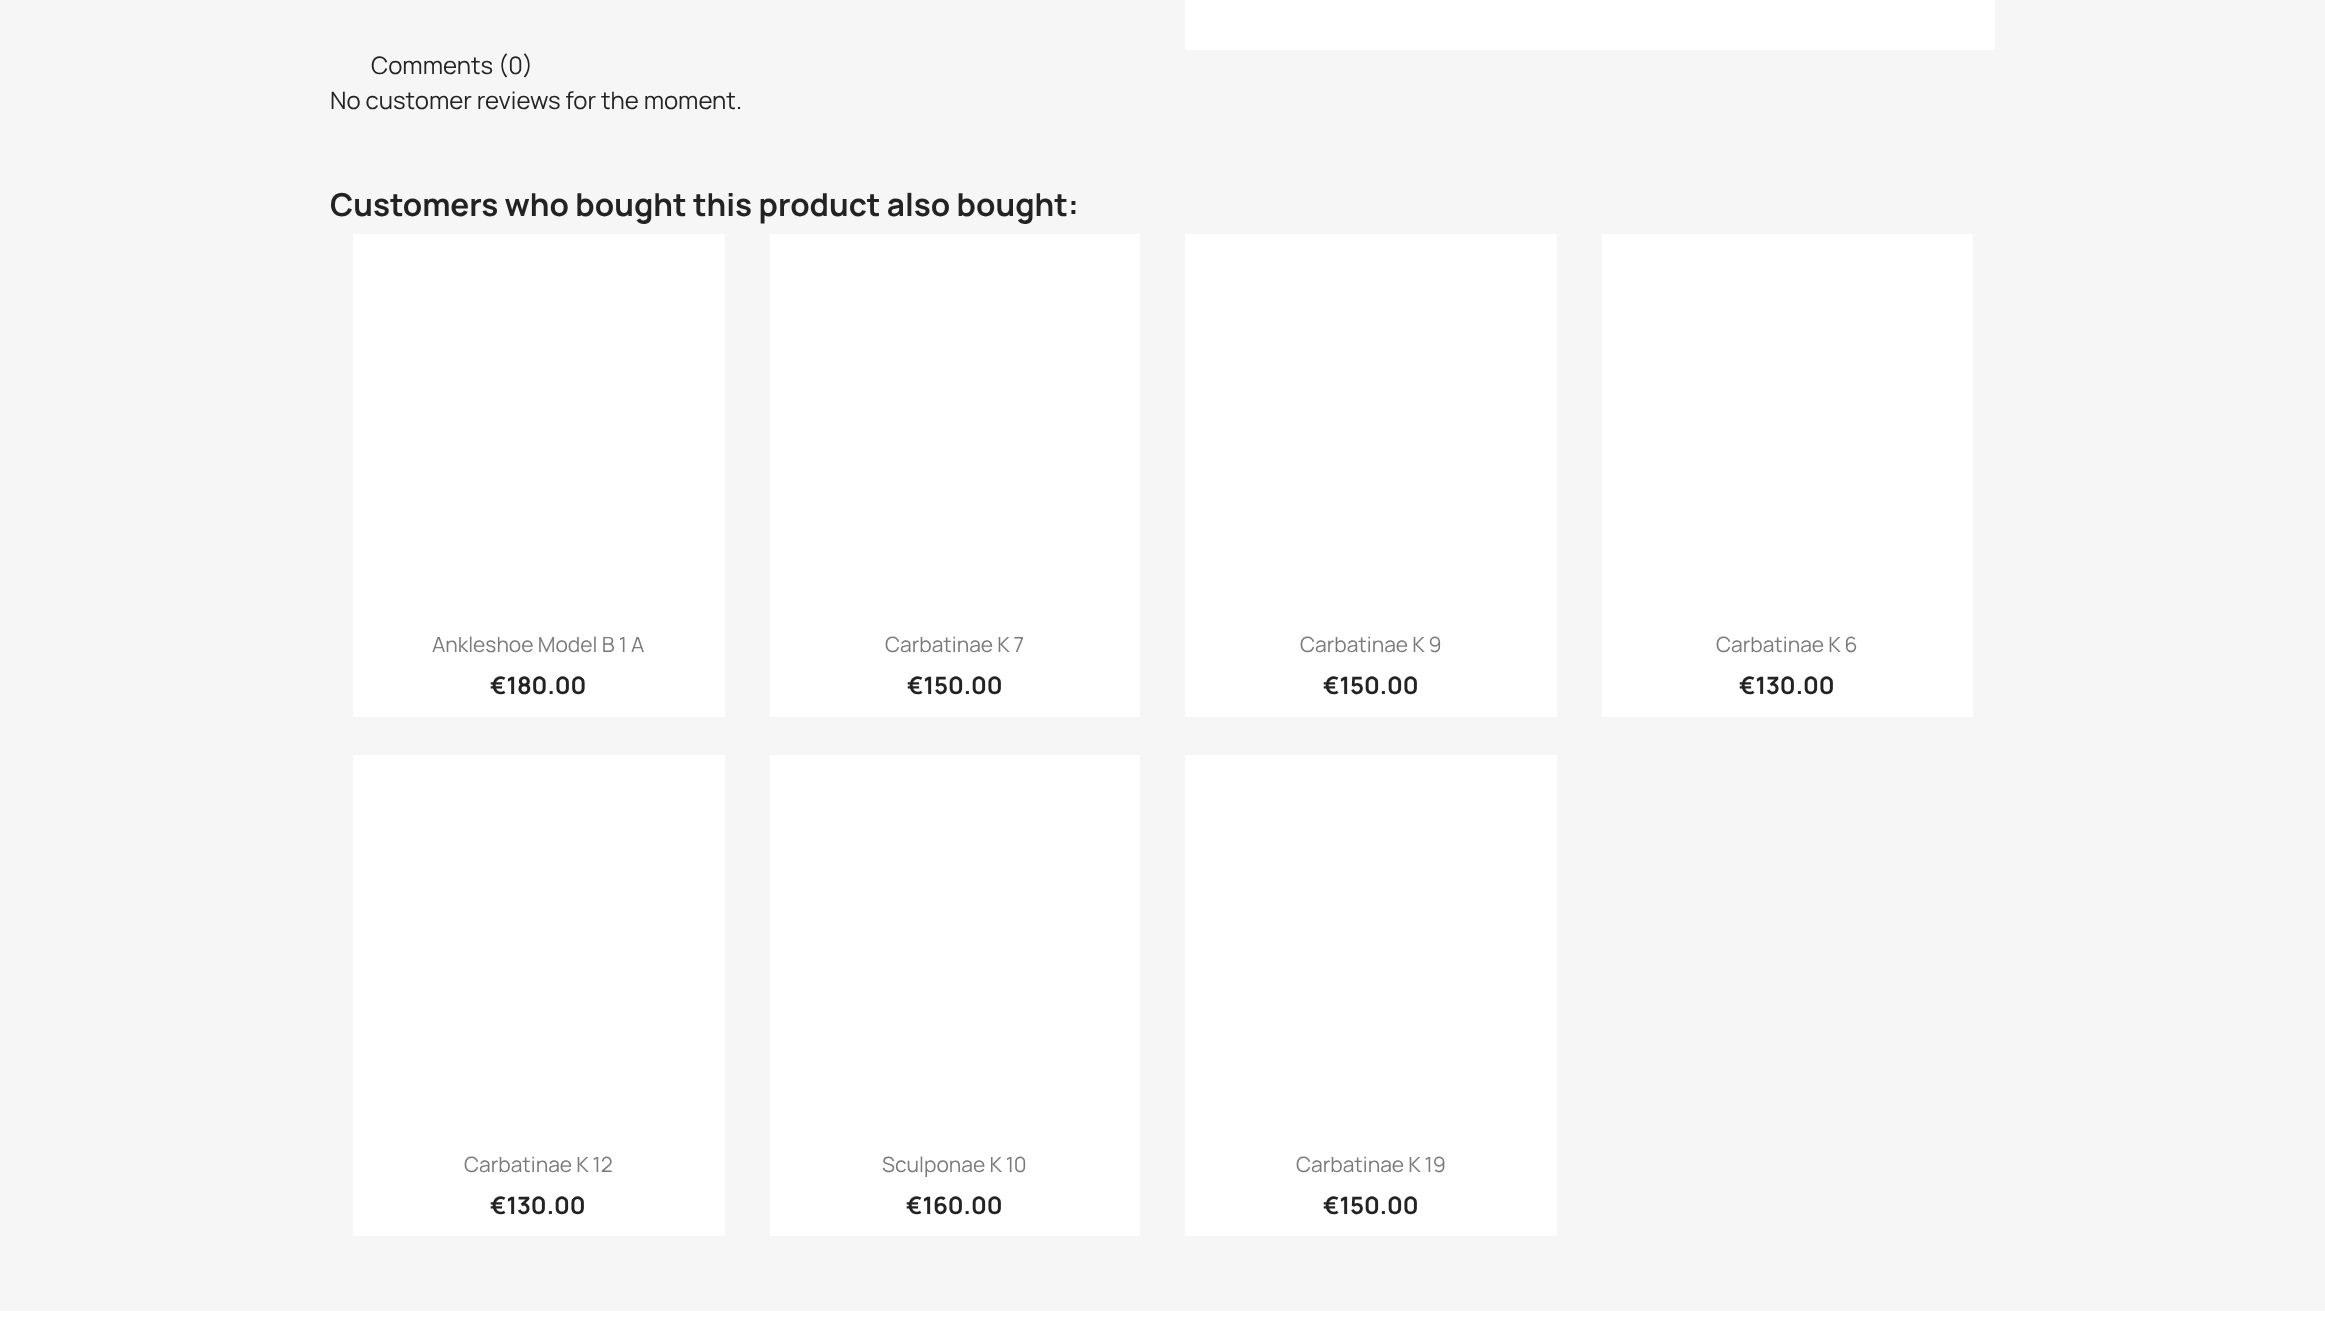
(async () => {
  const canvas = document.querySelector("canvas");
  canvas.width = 2325;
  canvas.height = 1318;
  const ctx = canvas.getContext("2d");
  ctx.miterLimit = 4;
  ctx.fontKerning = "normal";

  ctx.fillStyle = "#ffffff";
  ctx.fillRect(0, 0, 2325, 1318);
  for (const [x, y, w, h, color] of [
    [0, 0, 2325, 1311, "#f6f6f6"],
    [1185, 0, 810, 50, "#ffffff"],
    [353, 234, 372, 483, "#ffffff"],
    [770, 234, 370, 483, "#ffffff"],
    [1185, 234, 372, 483, "#ffffff"],
    [1602, 234, 371, 483, "#ffffff"],
    [353, 755, 372, 481, "#ffffff"],
    [770, 755, 370, 481, "#ffffff"],
    [1185, 755, 372, 481, "#ffffff"],
  ]) {
    ctx.fillStyle = color;
    ctx.fillRect(x, y, w, h);
  }
  ctx.font = "24px Manrope";
  ctx.fillStyle = "#232323";
  ctx.fillText("Comments (0)", 371, 74);
  ctx.fillText("No customer reviews for the moment.", 330, 109);
  ctx.font = "bold 31.5px Manrope";
  ctx.fillText("Customers who bought this product also bought:", 330, 216);
  ctx.font = "21px Manrope";
  ctx.fillStyle = "#7a7a7a";
  ctx.fillText("Ankleshoe Model B 1 A", 432, 652);
  ctx.font = "bold 24px Manrope";
  ctx.fillStyle = "#232323";
  ctx.fillText("€180.00", 490, 694);
  ctx.font = "21px Manrope";
  ctx.fillStyle = "#7a7a7a";
  ctx.fillText("Carbatinae K 7", 885, 652);
  ctx.font = "bold 24px Manrope";
  ctx.fillStyle = "#232323";
  ctx.fillText("€150.00", 907, 694);
  ctx.font = "21px Manrope";
  ctx.fillStyle = "#7a7a7a";
  ctx.fillText("Carbatinae K 9", 1300, 652);
  ctx.font = "bold 24px Manrope";
  ctx.fillStyle = "#232323";
  ctx.fillText("€150.00", 1323, 694);
  ctx.font = "21px Manrope";
  ctx.fillStyle = "#7a7a7a";
  ctx.fillText("Carbatinae K 6", 1716, 652);
  ctx.font = "bold 24px Manrope";
  ctx.fillStyle = "#232323";
  ctx.fillText("€130.00", 1739, 694);
  ctx.font = "21px Manrope";
  ctx.fillStyle = "#7a7a7a";
  ctx.fillText("Carbatinae K 12", 464, 1172);
  ctx.font = "bold 24px Manrope";
  ctx.fillStyle = "#232323";
  ctx.fillText("€130.00", 490, 1214);
  ctx.font = "21px Manrope";
  ctx.fillStyle = "#7a7a7a";
  ctx.fillText("Sculponae K 10", 882, 1172);
  ctx.font = "bold 24px Manrope";
  ctx.fillStyle = "#232323";
  ctx.fillText("€160.00", 906, 1214);
  ctx.font = "21px Manrope";
  ctx.fillStyle = "#7a7a7a";
  ctx.fillText("Carbatinae K 19", 1296, 1172);
  ctx.font = "bold 24px Manrope";
  ctx.fillStyle = "#232323";
  ctx.fillText("€150.00", 1323, 1214);
})();
